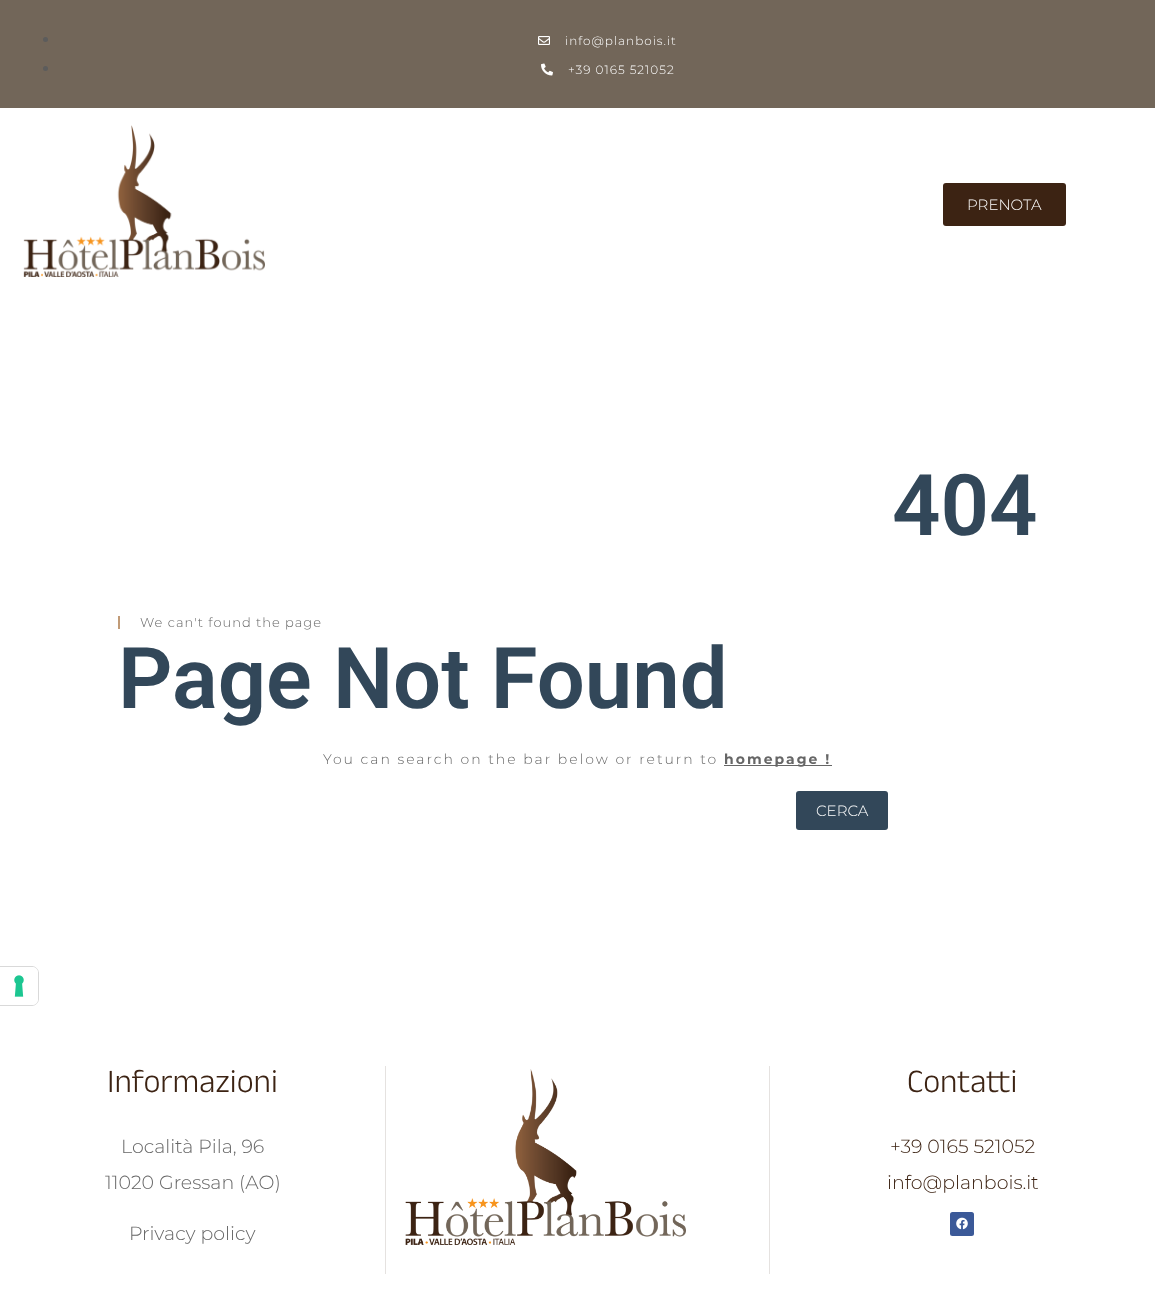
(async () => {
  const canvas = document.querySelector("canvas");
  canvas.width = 1155;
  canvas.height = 1314;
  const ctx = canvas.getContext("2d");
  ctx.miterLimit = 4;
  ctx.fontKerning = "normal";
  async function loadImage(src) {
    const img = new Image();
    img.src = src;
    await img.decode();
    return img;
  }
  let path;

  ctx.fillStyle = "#ffffff";
  ctx.fillRect(0, 0, 1155, 1314);
  path = new Path2D("M-.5 966.5H32C35.5 966.5 38.5 969.5 38.5 973V999C38.5 1002.5 35.5 1005.5 32 1005.5H-.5Z");
  ctx.strokeStyle = "#d9d9d9";
  ctx.stroke(path);
  ctx.beginPath();
  ctx.roundRect(0, 967, 38, 38, [0, 6, 6, 0]);
  ctx.fill();
  ctx.drawImage(await loadImage("img/1.png"), 14, 975, 10, 22);
  ctx.fillStyle = "#726659";
  ctx.fillRect(0, 0, 1155, 108);
  ctx.fillStyle = "#5c5c5c";
  ctx.beginPath();
  ctx.arc(45.5, 39.5, 2.5, 0, Math.PI * 2);
  ctx.fill();
  ctx.drawImage(await loadImage("img/2.png"), 538, 36, 12, 9);
  ctx.beginPath();
  ctx.arc(45.5, 68.5, 2.5, 0, Math.PI * 2);
  ctx.fill();
  ctx.drawImage(await loadImage("img/3.png"), 541, 63, 12, 13);
  ctx.drawImage(await loadImage("img/4.png"), 23, 125, 242, 152);
  ctx.fillStyle = "#3c2313";
  ctx.beginPath();
  ctx.roundRect(943, 183, 123, 43, 3);
  ctx.fill();
  ctx.fillStyle = "#c19b77";
  ctx.fillRect(118, 616, 2, 13);
  ctx.fillStyle = "#666666";
  ctx.fillRect(724, 765, 108, 1);
  ctx.fillStyle = "#324759";
  ctx.beginPath();
  ctx.roundRect(796, 791, 92, 39, 3);
  ctx.fill();
  ctx.fillStyle = "#e5e2e0";
  ctx.fillRect(769, 1066, 1, 208);
  ctx.fillRect(385, 1066, 1, 208);
  ctx.drawImage(await loadImage("img/5.png"), 405, 1069, 281, 176);
  ctx.fillStyle = "#3b5998";
  ctx.beginPath();
  ctx.roundRect(950, 1212, 24, 24, 2.5);
  ctx.fill();
  ctx.drawImage(await loadImage("img/6.png"), 956, 1217, 12, 13);
  ctx.letterSpacing = "1px";
  ctx.font = "300 12px Montserrat";
  ctx.fillStyle = "#ffffff";
  ctx.fillText("info@planbois.it", 565, 45);
  ctx.fillText("+39 0165 521052", 568, 74);
  ctx.letterSpacing = "0px";
  ctx.font = "300 15px Montserrat";
  ctx.fillText("PRENOTA", 967, 210);
  ctx.font = "600 85px Roboto";
  ctx.fillStyle = "#324759";
  ctx.fillText("404", 892, 535);
  ctx.letterSpacing = "1px";
  ctx.font = "300 13px Montserrat";
  ctx.fillStyle = "#666666";
  ctx.fillText("We can't found the page", 140, 627);
  ctx.letterSpacing = "0px";
  ctx.font = "600 85px Roboto";
  ctx.fillStyle = "#324759";
  ctx.fillText("Page Not Found", 118, 708);
  ctx.letterSpacing = "2px";
  ctx.font = "300 14px Montserrat";
  ctx.fillStyle = "#666666";
  ctx.fillText("You can search on the bar below or return to", 323, 764);
  ctx.font = "bold 14px Montserrat";
  ctx.fillText("homepage !", 724, 764);
  ctx.letterSpacing = "0px";
  ctx.font = "300 15px Montserrat";
  ctx.fillStyle = "#ffffff";
  ctx.fillText("CERCA", 816, 816);
  ctx.font = "300 33px Anek Kannada";
  ctx.fillStyle = "#3c2313";
  ctx.fillText("Informazioni", 107, 1092);
  ctx.font = "300 19px Montserrat";
  ctx.fillStyle = "#666666";
  for (const [text, x, y] of [
    ["Località Pila, 96", 121, 1153],
    ["11020 Gressan (AO)", 105, 1189],
    ["Privacy policy", 129, 1240],
  ]) {
    ctx.fillText(text, x, y);
  }
  ctx.font = "300 33px Anek Kannada";
  ctx.fillStyle = "#3c2313";
  ctx.fillText("Contatti", 907, 1092);
  ctx.font = "300 19px Montserrat";
  ctx.fillText("+39 0165 521052", 890, 1153);
  ctx.fillText("info@planbois.it", 887, 1189);
})();
